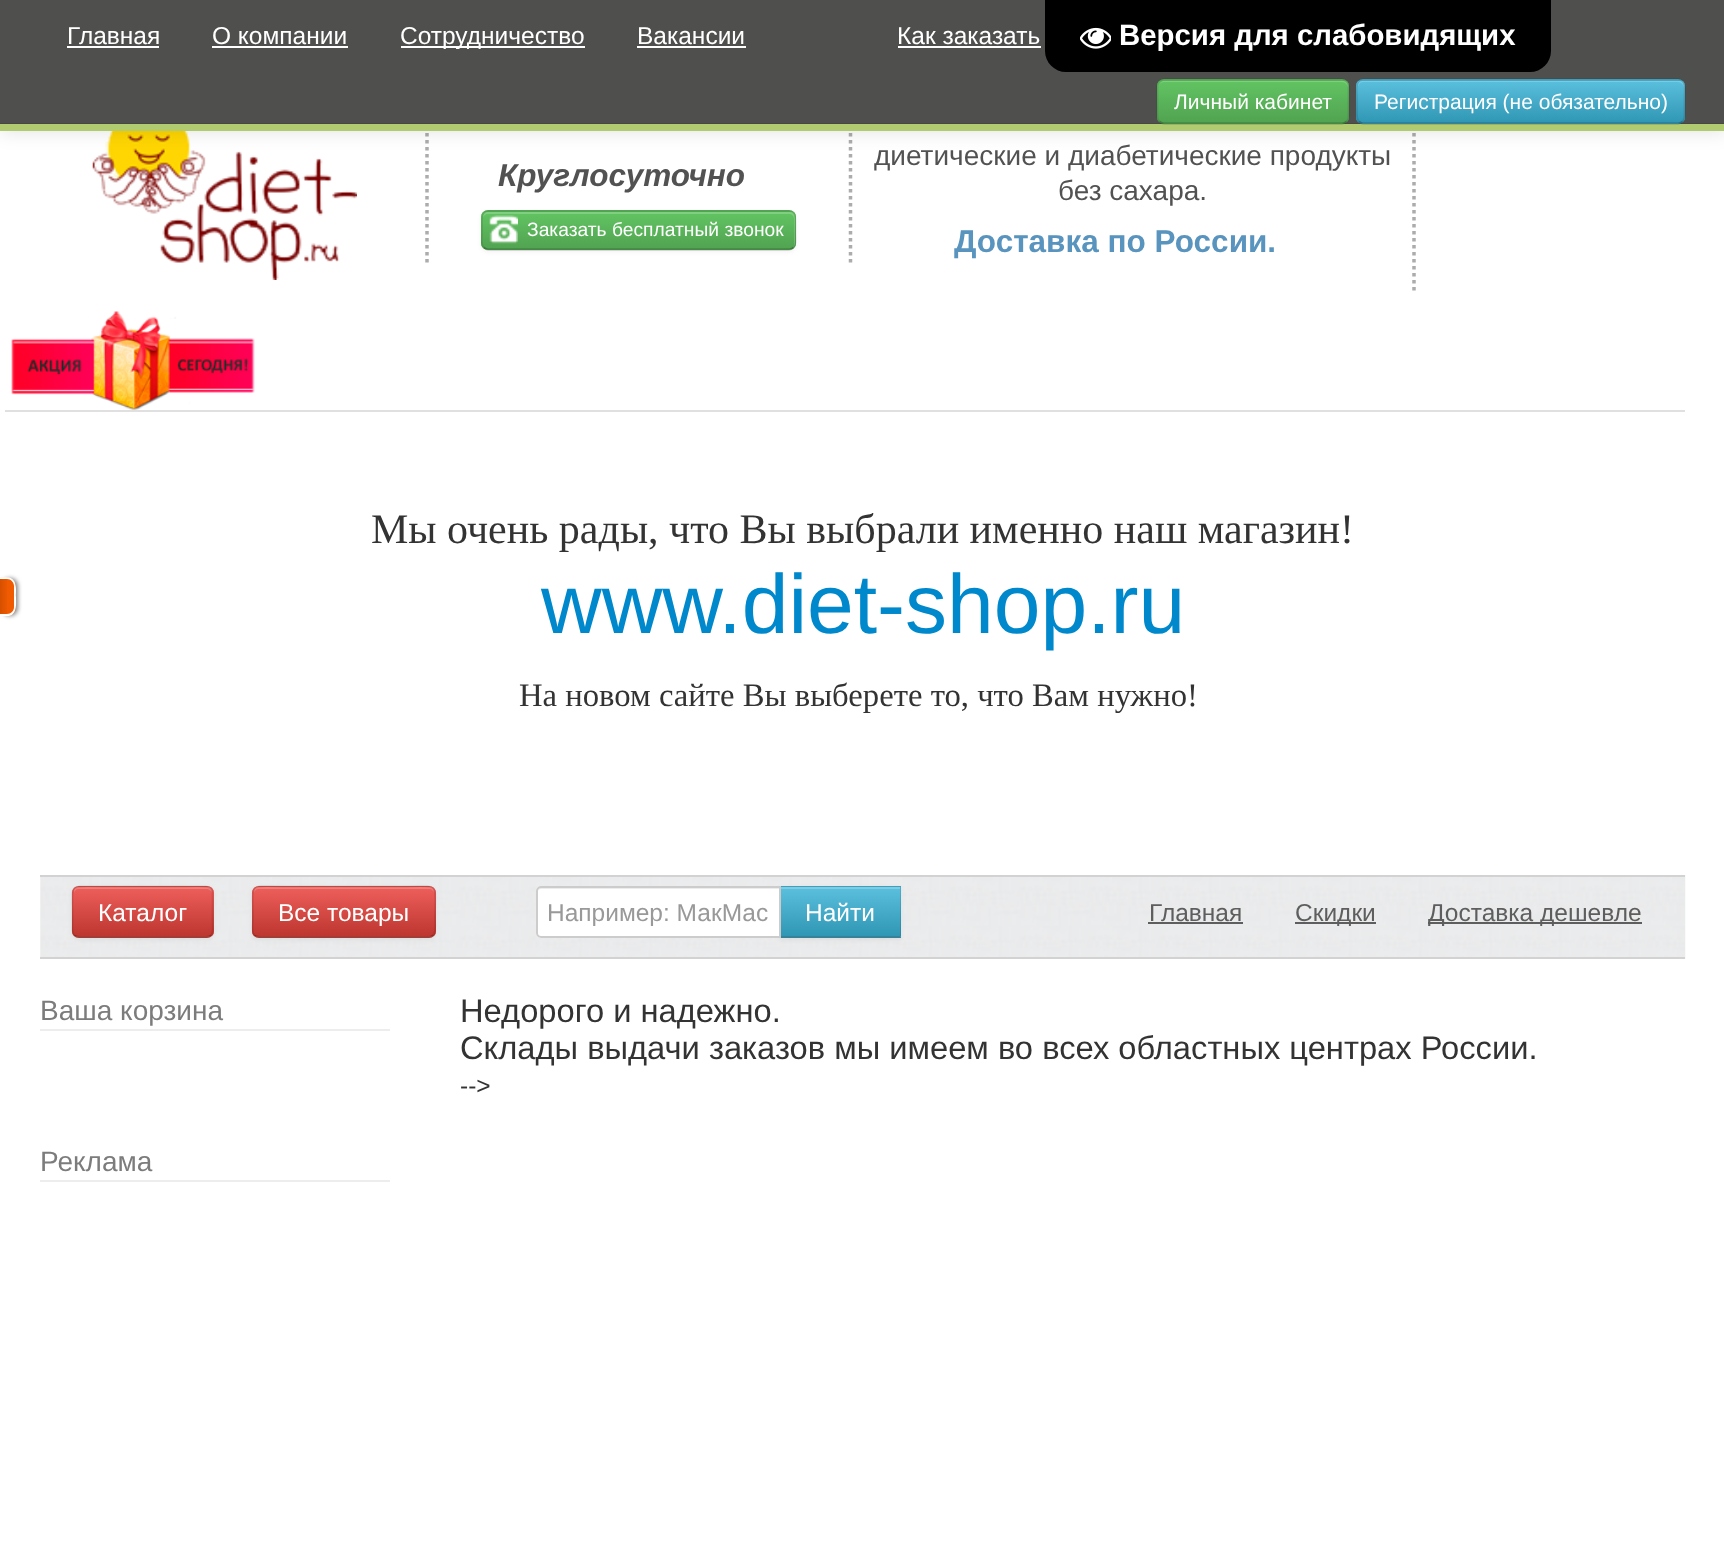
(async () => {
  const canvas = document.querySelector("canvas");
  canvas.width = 1724;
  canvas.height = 1548;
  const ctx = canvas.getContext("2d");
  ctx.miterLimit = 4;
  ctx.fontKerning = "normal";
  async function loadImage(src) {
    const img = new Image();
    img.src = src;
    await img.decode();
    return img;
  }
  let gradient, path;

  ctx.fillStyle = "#ffffff";
  ctx.fillRect(0, 0, 1724, 1548);
  path = new Path2D("M427 105V262.5");
  ctx.strokeStyle = "#acacac";
  ctx.lineWidth = 3.5;
  ctx.setLineDash([3.5, 3.5]);
  ctx.stroke(path);
  ctx.drawImage(await loadImage("img/3.png"), 92, 131, 265, 149);
  path = new Path2D("M850.5 105V262.5");
  ctx.stroke(path);
  path = new Path2D("M1414 105V294");
  ctx.stroke(path);
  ctx.fillStyle = "rgba(0, 0, 0, 0.1)";
  ctx.filter = "blur(9px)";
  ctx.beginPath();
  ctx.rect(0, 2, 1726, 131);
  ctx.fill();
  ctx.filter = "none";
  ctx.fillStyle = "#4f4f4e";
  ctx.fillRect(0, 0, 1724, 123);
  ctx.fillStyle = "#000000";
  ctx.beginPath();
  ctx.roundRect(1045, 0, 506, 72, [0, 0, 21, 21]);
  ctx.fill();
  ctx.drawImage(await loadImage("img/1.png"), 1080, 27, 31, 22);
  for (const [x, y, w, h, color] of [
    [0, 123, 1724, 1, "#474746"],
    [0, 124, 1724, 7, "#b1cc70"],
    [67, 46, 92, 2, "#ffffff"],
    [212, 46, 136, 2, "#ffffff"],
    [401, 46, 184, 2, "#ffffff"],
    [637, 46, 109, 2, "#ffffff"],
    [898, 46, 143, 2, "#ffffff"],
  ]) {
    ctx.fillStyle = color;
    ctx.fillRect(x, y, w, h);
  }
  ctx.fillStyle = "#5bb75b";
  ctx.beginPath();
  ctx.roundRect(1157, 79, 192, 45, 7);
  ctx.fill();
  ctx.save();
  ctx.beginPath();
  ctx.roundRect(1157, 79, 192, 45, 7);
  ctx.clip();
  gradient = ctx.createLinearGradient(1253, 80, 1253, 123);
  gradient.addColorStop(0, "#62c462");
  gradient.addColorStop(1, "#51a351");
  ctx.fillStyle = gradient;
  ctx.fillRect(1157, 81, 192, 42);
  ctx.restore();
  ctx.fillStyle = "rgba(255, 255, 255, 0.2)";
  path = new Path2D("M1164 82H1342C1345 82 1348 85 1348 88V86C1348 83 1346 81 1343 81H1164C1162 81 1160 83 1159 85C1160 83 1162 82 1164 82Z");
  ctx.fill(path);
  path = new Path2D("M1346.5 121.5C1345.5 122.5 1344 123.5 1342 123.5H1164C1162 123.5 1160.5 122.5 1159.5 121.5");
  ctx.strokeStyle = "rgba(0, 0, 0, 0.25)";
  ctx.lineWidth = 1.8;
  ctx.setLineDash([]);
  ctx.stroke(path);
  path = new Path2D("M1159.5 121.5C1158.5 120.5 1157.5 119 1157.5 117V86C1157.5 84 1158.5 82.5 1159.5 81.5C1160.5 80.5 1162 79.5 1164 79.5H1342C1344 79.5 1345.5 80.5 1346.5 81.5C1347.5 82.5 1348.5 84 1348.5 86V117C1348.5 119 1347.5 120.5 1346.5 121.5");
  ctx.strokeStyle = "rgba(0, 0, 0, 0.1)";
  ctx.stroke(path);
  ctx.fillStyle = "#49afcd";
  ctx.beginPath();
  ctx.roundRect(1356, 79, 329, 45, 7);
  ctx.fill();
  ctx.save();
  ctx.beginPath();
  ctx.roundRect(1356, 79, 329, 45, 7);
  ctx.clip();
  gradient = ctx.createLinearGradient(1521, 80, 1521, 123);
  gradient.addColorStop(0, "#5bc0de");
  gradient.addColorStop(1, "#2f96b4");
  ctx.fillStyle = gradient;
  ctx.fillRect(1356, 81, 329, 42);
  ctx.restore();
  ctx.fillStyle = "rgba(255, 255, 255, 0.2)";
  path = new Path2D("M1363 82H1678C1681 82 1684 85 1684 88V86C1684 83 1682 81 1679 81H1363C1360 81 1358 83 1358 86V88C1358 85 1360 82 1363 82Z");
  ctx.fill(path);
  path = new Path2D("M1682.5 121.5C1681.5 122.5 1680 123.5 1678 123.5H1363C1361.5 123.5 1360 122.5 1359 121.5");
  ctx.strokeStyle = "rgba(0, 0, 0, 0.25)";
  ctx.stroke(path);
  path = new Path2D("M1359 121.5C1356.5 119 1357 115 1357 112V96C1357 91.5 1355 79.5 1363 79.5H1678C1686.5 79.5 1684.5 91.5 1684.5 96V112C1684.5 115 1685 119 1682.5 121.5");
  ctx.strokeStyle = "rgba(0, 0, 0, 0.1)";
  ctx.stroke(path);
  ctx.fillStyle = "#888888";
  ctx.filter = "blur(2px)";
  ctx.beginPath();
  ctx.roundRect(2, 578, 16, 38, 9);
  ctx.fill();
  ctx.filter = "none";
  ctx.fillStyle = "#f05a00";
  ctx.beginPath();
  ctx.roundRect(0, 578, 16, 38, [0, 9, 9, 0]);
  ctx.fill();
  ctx.drawImage(await loadImage("img/2.png"), 0, 577, 7, 37);
  ctx.fillStyle = "#ffffff";
  path = new Path2D("M0 577.5H9C17.5 579.5 16 590 16 597C16 603.5 17.5 614 9 616H0ZM0 579H7C11 579 14 582.5 14 586V607C14 611 11 614 7 614H0Z");
  ctx.fill(path, "evenodd");
  ctx.fillStyle = "#e0e0e0";
  ctx.fillRect(5, 410, 1680, 2);
  ctx.fillStyle = "rgba(0, 0, 0, 0.05)";
  ctx.filter = "blur(2px)";
  ctx.beginPath();
  ctx.roundRect(481, 212, 315, 40, 7);
  ctx.fill();
  ctx.filter = "none";
  ctx.fillStyle = "#5bb75b";
  ctx.beginPath();
  ctx.roundRect(481, 210, 315, 40, 7);
  ctx.fill();
  ctx.save();
  ctx.beginPath();
  ctx.roundRect(481, 210, 315, 40, 7);
  ctx.clip();
  gradient = ctx.createLinearGradient(639, 212, 639, 249);
  gradient.addColorStop(0, "#62c462");
  gradient.addColorStop(1, "#51a351");
  ctx.fillStyle = gradient;
  ctx.fillRect(481, 212, 315, 37);
  ctx.restore();
  ctx.fillStyle = "rgba(255, 255, 255, 0.2)";
  path = new Path2D("M488 214H789C792 214 794 216 794 219V245L793 248C794 247 795 245 795 244V217C795 214 793 212 790 212H488C485 212 483 214 483 217V219C483 216 485 214 488 214Z");
  ctx.fill(path);
  path = new Path2D("M793.5 247.5C792.5 248.5 791 249.5 789 249.5H488C486.5 249.5 485 248.5 484 247.5");
  ctx.strokeStyle = "rgba(0, 0, 0, 0.25)";
  ctx.stroke(path);
  path = new Path2D("M484 247.5C480.5 244.5 482 238.5 482 234.5V221.5C482 217 482 211 488 211H789C795.5 211 795.5 217 795.5 221.5V234.5C795.5 238.5 797 244.5 793.5 247.5");
  ctx.strokeStyle = "rgba(0, 0, 0, 0.1)";
  ctx.stroke(path);
  ctx.drawImage(await loadImage("img/4.png"), 489, 215, 29, 29);
  ctx.drawImage(await loadImage("img/5.png"), 11, 311, 244, 99);
  ctx.drawImage(await loadImage("img/6.png"), 40, 875, 1646, 84);
  ctx.fillStyle = "#d2d2d3";
  ctx.fillRect(40, 875, 1645, 2);
  ctx.fillRect(40, 957, 1645, 2);
  ctx.fillStyle = "rgba(0, 0, 0, 0.05)";
  ctx.filter = "blur(2px)";
  ctx.beginPath();
  ctx.roundRect(72, 887, 142, 53, 7);
  ctx.fill();
  ctx.filter = "none";
  ctx.fillStyle = "#da4f49";
  ctx.beginPath();
  ctx.roundRect(72, 886, 142, 52, 7);
  ctx.fill();
  ctx.save();
  ctx.beginPath();
  ctx.roundRect(72, 886, 142, 52, 7);
  ctx.clip();
  gradient = ctx.createLinearGradient(143, 887, 143, 936);
  gradient.addColorStop(0, "#ee5f5b");
  gradient.addColorStop(1, "#bd362f");
  ctx.fillStyle = gradient;
  ctx.fillRect(72, 887, 142, 49);
  ctx.restore();
  ctx.fillStyle = "rgba(255, 255, 255, 0.2)";
  path = new Path2D("M79 889H206C209 889 212 891 212 894V892C212 889 210 887 207 887H79C76 887 74 889 74 892V894C74 891 76 889 79 889Z");
  ctx.fill(path);
  path = new Path2D("M211 935.5C209.5 936.5 208 937 206.5 937H79C77 937 75.5 936.5 74.5 935.5");
  ctx.strokeStyle = "rgba(0, 0, 0, 0.25)";
  ctx.stroke(path);
  path = new Path2D("M74.5 935.5C71.5 932.5 72.5 928 72.5 924.5V912C72.5 882 68.5 886.5 100 886.5H185C216.5 886.5 212.5 882 212.5 912V924.5C212.5 928 213.5 932.5 211 935.5");
  ctx.strokeStyle = "rgba(0, 0, 0, 0.1)";
  ctx.stroke(path);
  ctx.fillStyle = "rgba(0, 0, 0, 0.05)";
  ctx.filter = "blur(2px)";
  ctx.beginPath();
  ctx.roundRect(252, 887, 184, 53, 7);
  ctx.fill();
  ctx.filter = "none";
  ctx.fillStyle = "#da4f49";
  ctx.beginPath();
  ctx.roundRect(252, 886, 184, 52, 7);
  ctx.fill();
  ctx.save();
  ctx.beginPath();
  ctx.roundRect(252, 886, 184, 52, 7);
  ctx.clip();
  gradient = ctx.createLinearGradient(344, 887, 344, 936);
  gradient.addColorStop(0, "#ee5f5b");
  gradient.addColorStop(1, "#bd362f");
  ctx.fillStyle = gradient;
  ctx.fillRect(252, 887, 184, 49);
  ctx.restore();
  ctx.fillStyle = "rgba(255, 255, 255, 0.2)";
  path = new Path2D("M259 889H429C432 889 434 891 434 894V892C434 889 432 887 429 887H259C256 887 254 889 254 892V894C254 891 256 889 259 889Z");
  ctx.fill(path);
  path = new Path2D("M433 935.5C432 936.5 430.5 937 429 937H259C257.5 937 256 936.5 254.5 935.5");
  ctx.strokeStyle = "rgba(0, 0, 0, 0.25)";
  ctx.stroke(path);
  path = new Path2D("M254.5 935.5C251 932 253 922 253 918C253 880 246.5 886.5 287.5 886.5H400.5C441 886.5 435 880 435 918C435 922 436.5 932 433 935.5");
  ctx.strokeStyle = "rgba(0, 0, 0, 0.1)";
  ctx.stroke(path);
  ctx.fillStyle = "rgba(0, 0, 0, 0.05)";
  ctx.filter = "blur(2px)";
  ctx.beginPath();
  ctx.rect(779, 887, 122, 53);
  ctx.fill();
  ctx.filter = "none";
  ctx.fillStyle = "#49afcd";
  ctx.fillRect(781, 886, 120, 52);
  ctx.fillStyle = "#429eb9";
  path = new Path2D("M779 886H901L900 887H780Z");
  ctx.fill(path);
  gradient = ctx.createLinearGradient(840, 887, 840, 936);
  gradient.addColorStop(0, "#5bc0de");
  gradient.addColorStop(1, "#2f96b4");
  ctx.fillStyle = gradient;
  ctx.fillRect(781, 887, 120, 49);
  ctx.fillStyle = "rgba(0, 0, 0, 0.1)";
  path = new Path2D("M901 886V938L900 936V887Z");
  ctx.fill(path);
  ctx.fillStyle = "rgba(0, 0, 0, 0.25)";
  path = new Path2D("M901 938H779L780 936H900Z");
  ctx.fill(path);
  ctx.fillStyle = "#ffffff";
  ctx.beginPath();
  ctx.roundRect(536, 886, 245, 52, [5, 0, 0, 5]);
  ctx.fill();
  ctx.fillStyle = "#ececec";
  path = new Path2D("M541 889H779V887H541C538 887 537 889 537 892C537 891 539 889 541 889Z");
  ctx.fill(path);
  ctx.beginPath();
  ctx.roundRect(537, 887, 243, 50, [4, 0, 0, 4]);
  ctx.strokeStyle = "#cccccc";
  ctx.lineWidth = 2;
  ctx.stroke();
  for (const [x, y, w, h, color] of [
    [781, 887, 119, 2, "#7bcce4"],
    [1148, 922, 95, 2, "#5e5e5e"],
    [1295, 922, 81, 2, "#5e5e5e"],
    [1428, 922, 214, 2, "#5e5e5e"],
    [40, 1029, 350, 2, "#ededed"],
    [40, 1180, 350, 2, "#ededed"],
  ]) {
    ctx.fillStyle = color;
    ctx.fillRect(x, y, w, h);
  }
  ctx.font = "bold 29.4px Liberation Sans";
  ctx.fillStyle = "#ffffff";
  ctx.fillText("Версия для слабовидящих", 1119, 45);
  ctx.font = "24.5px Liberation Sans";
  for (const [text, x, y] of [
    ["Главная", 67, 44],
    ["О компании", 212, 44],
    ["Сотрудничество", 400, 44],
    ["Вакансии", 637, 44],
    ["Как заказать", 897, 44],
  ]) {
    ctx.fillText(text, x, y);
  }
  ctx.font = "21px Liberation Sans";
  ctx.fillText("Личный кабинет", 1174, 109);
  ctx.fillText("Регистрация (не обязательно)", 1374, 109);
  ctx.font = "italic bold 31.5px Liberation Sans";
  ctx.fillStyle = "#525252";
  ctx.fillText("Круглосуточно", 498, 186);
  ctx.font = "19.25px Liberation Sans";
  ctx.fillStyle = "#ffffff";
  ctx.fillText("Заказать бесплатный звонок", 527, 236);
  ctx.font = "28px Liberation Sans";
  ctx.fillStyle = "#525252";
  ctx.fillText("диетические и диабетические продукты", 874, 165);
  ctx.fillText("без сахара.", 1058, 200);
  ctx.font = "bold 31.5px Liberation Sans";
  ctx.fillStyle = "#5994be";
  ctx.fillText("Доставка по России.", 954, 252);
  ctx.font = "42px Liberation Serif";
  ctx.fillStyle = "#333333";
  ctx.fillText("Мы очень рады, что Вы выбрали именно наш магазин!", 371, 543);
  ctx.font = "84px Liberation Sans";
  ctx.fillStyle = "#0088cc";
  ctx.fillText("www.diet-shop.ru", 541, 633);
  ctx.font = "32.7px Liberation Serif";
  ctx.fillStyle = "#333333";
  ctx.fillText("На новом сайте Вы выберете то, что Вам нужно!", 519, 706);
  ctx.font = "24.5px Liberation Sans";
  ctx.fillStyle = "#ffffff";
  ctx.fillText("Каталог", 98, 921);
  ctx.fillText("Все товары", 278, 921);
  ctx.fillStyle = "#999999";
  ctx.fillText("Например: МакМас", 547, 921);
  ctx.fillStyle = "#ffffff";
  ctx.fillText("Найти", 805, 921);
  ctx.fillStyle = "#5e5e5e";
  for (const [text, x, y] of [
    ["Главная", 1149, 921],
    ["Скидки", 1295, 921],
    ["Доставка дешевле", 1428, 921],
  ]) {
    ctx.fillText(text, x, y);
  }
  ctx.font = "28px Liberation Sans";
  ctx.fillStyle = "#7c7c7c";
  ctx.fillText("Ваша корзина", 40, 1020);
  ctx.fillText("Реклама", 40, 1171);
  ctx.font = "32.7px Liberation Sans";
  ctx.fillStyle = "#333333";
  ctx.fillText("Недорого и надежно.", 460, 1022);
  ctx.fillText("Склады выдачи заказов мы имеем во всех областных центрах России.", 460, 1059);
  ctx.font = "24.5px Liberation Sans";
  ctx.fillText("-->", 460, 1094);
})();
